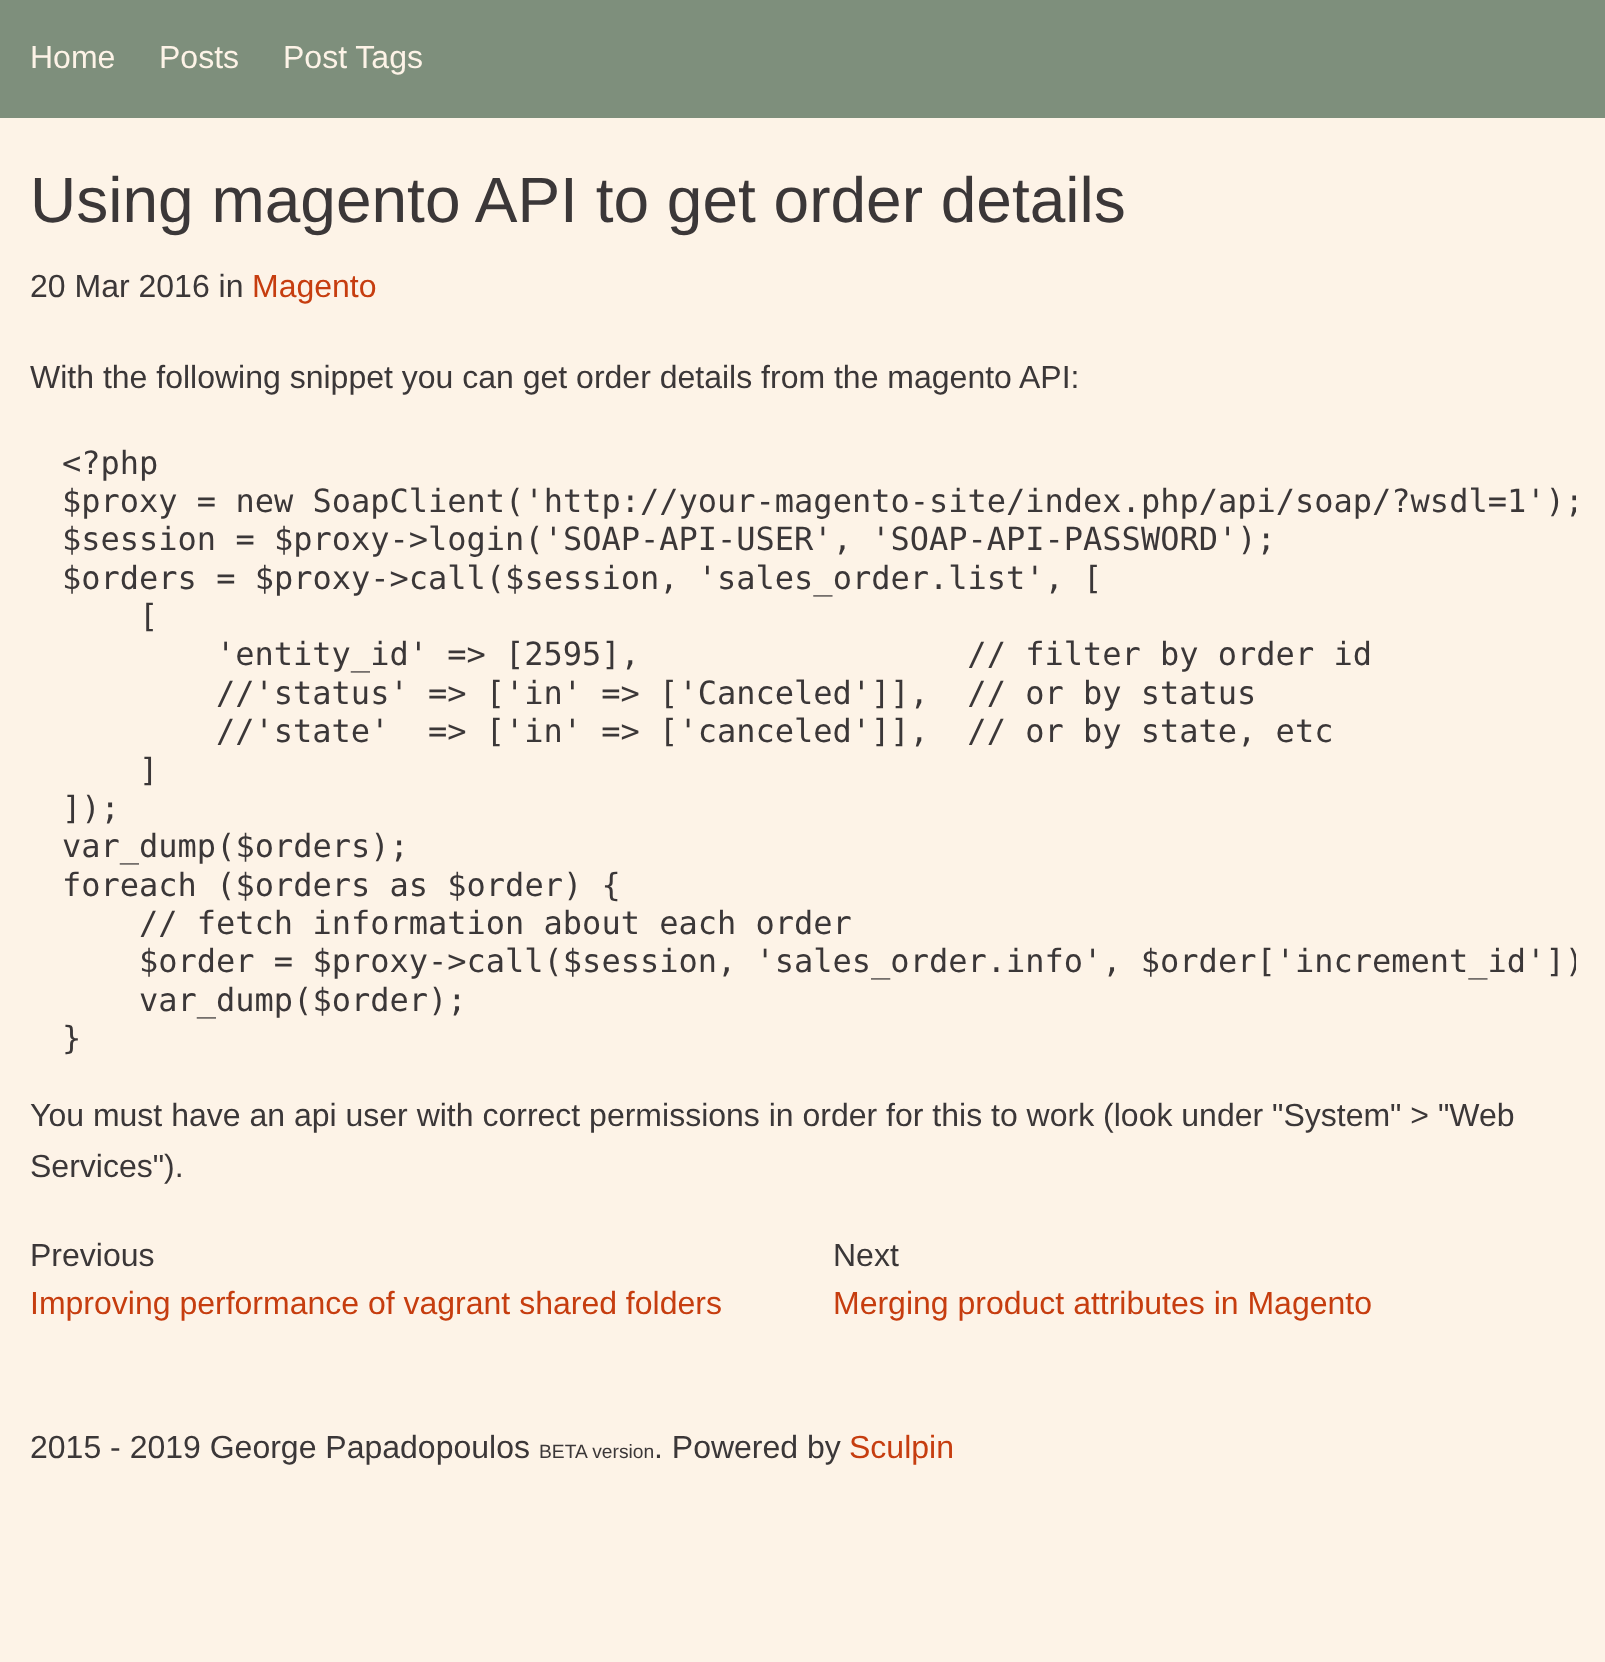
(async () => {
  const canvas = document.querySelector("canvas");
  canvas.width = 1605;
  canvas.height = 1662;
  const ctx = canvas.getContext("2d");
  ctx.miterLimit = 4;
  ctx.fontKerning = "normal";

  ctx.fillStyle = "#fdf3e7";
  ctx.fillRect(0, 0, 1605, 1662);
  ctx.fillStyle = "#7e8f7c";
  ctx.fillRect(0, 0, 1605, 118);
  ctx.font = "32px Liberation Sans";
  ctx.fillStyle = "#fdf3e7";
  for (const [text, x, y] of [
    ["Home", 30, 68],
    ["Posts", 159, 68],
    ["Post Tags", 283, 68],
  ]) {
    ctx.fillText(text, x, y);
  }
  ctx.font = "64px Liberation Sans";
  ctx.fillStyle = "#3b3738";
  ctx.fillText("Using magento API to get order details", 30, 222);
  ctx.font = "32px Liberation Sans";
  ctx.fillText("20 Mar 2016 in", 30, 297);
  ctx.fillStyle = "#c63d0f";
  ctx.fillText("Magento", 252, 297);
  ctx.fillStyle = "#3b3738";
  ctx.fillText("With the following snippet you can get order details from the magento API:", 30, 388);
  ctx.font = "32px DejaVu Sans Mono";
  ctx.fillText("<?php", 62, 474);
  ctx.save();
  ctx.beginPath();
  ctx.rect(30, 444, 1546, 614);
  ctx.clip();
  ctx.fillText("$proxy = new SoapClient('http://your-magento-site/index.php/api/soap/?wsdl=1');", 62, 512);
  ctx.restore();
  for (const [text, x, y] of [
    ["$session = $proxy->login('SOAP-API-USER', 'SOAP-API-PASSWORD');", 62, 550],
    ["$orders = $proxy->call($session, 'sales_order.list', [", 62, 589],
    ["[", 139, 627],
    ["'entity_id' => [2595],                 // filter by order id", 216, 665],
    ["//'status' => ['in' => ['Canceled']],  // or by status", 216, 704],
    ["//'state'  => ['in' => ['canceled']],  // or by state, etc", 216, 742],
    ["]", 139, 781],
    ["]);", 62, 819],
    ["var_dump($orders);", 62, 857],
    ["foreach ($orders as $order) {", 62, 896],
    ["// fetch information about each order", 139, 934],
  ]) {
    ctx.fillText(text, x, y);
  }
  ctx.save();
  ctx.beginPath();
  ctx.rect(30, 444, 1546, 614);
  ctx.clip();
  ctx.fillText("$order = $proxy->call($session, 'sales_order.info', $order['increment_id'])", 139, 972);
  ctx.restore();
  ctx.fillText("var_dump($order);", 139, 1011);
  ctx.fillText("}", 62, 1049);
  ctx.font = "32px Liberation Sans";
  for (const [text, x, y] of [
    ["You must have an api user with correct permissions in order for this to work (look under \"System\" > \"Web", 30, 1126],
    ["Services\").", 30, 1177],
    ["Previous", 30, 1266],
  ]) {
    ctx.fillText(text, x, y);
  }
  ctx.fillStyle = "#c63d0f";
  ctx.fillText("Improving performance of vagrant shared folders", 30, 1314);
  ctx.fillStyle = "#3b3738";
  ctx.fillText("Next", 833, 1266);
  ctx.fillStyle = "#c63d0f";
  ctx.fillText("Merging product attributes in Magento", 833, 1314);
  ctx.fillStyle = "#3b3738";
  ctx.fillText("2015 - 2019 George Papadopoulos", 30, 1458);
  ctx.font = "19.25px Liberation Sans";
  ctx.fillText("BETA version", 539, 1458);
  ctx.font = "32px Liberation Sans";
  ctx.fillText(". Powered by", 654, 1458);
  ctx.fillStyle = "#c63d0f";
  ctx.fillText("Sculpin", 849, 1458);
})();
